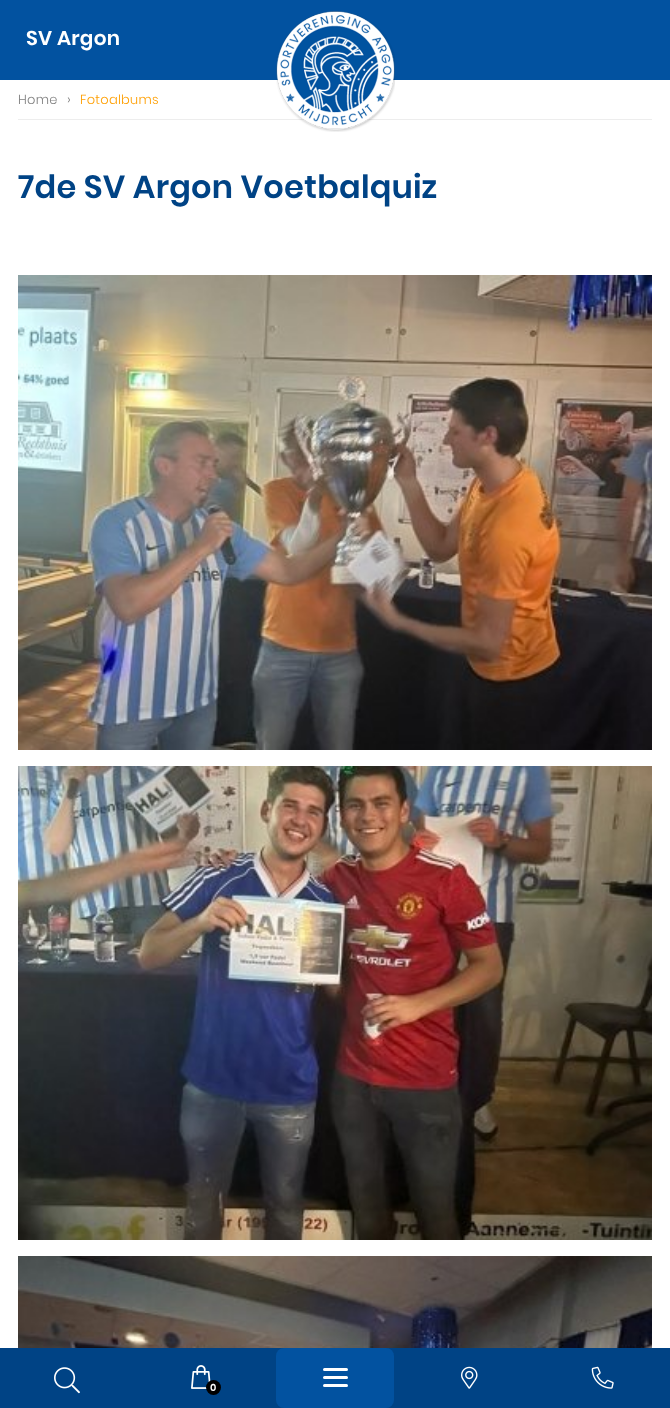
(async () => {
  const canvas = document.querySelector("canvas");
  canvas.width = 670;
  canvas.height = 1408;
  const ctx = canvas.getContext("2d");
  ctx.miterLimit = 4;
  ctx.fontKerning = "normal";
  async function loadImage(src) {
    const img = new Image();
    img.src = src;
    await img.decode();
    return img;
  }

  ctx.fillStyle = "#ffffff";
  ctx.fillRect(0, 0, 670, 1408);
  ctx.fillStyle = "#0252a0";
  ctx.fillRect(0, 0, 670, 80);
  ctx.fillStyle = "#ededed";
  ctx.fillRect(18, 119, 634, 1);
  ctx.drawImage(await loadImage("img/1.png"), 276, 11, 119, 121);
  ctx.drawImage(await loadImage("img/2.png"), 18, 275, 634, 475);
  ctx.drawImage(await loadImage("img/3.png"), 18, 766, 634, 474);
  ctx.drawImage(await loadImage("img/4.png"), 18, 1256, 634, 92);
  ctx.fillStyle = "#004385";
  ctx.fillRect(0, 1348, 670, 60);
  ctx.drawImage(await loadImage("img/5.png"), 54, 1367, 26, 27);
  ctx.drawImage(await loadImage("img/6.png"), 191, 1365, 20, 24);
  ctx.fillStyle = "#000000";
  ctx.beginPath();
  ctx.arc(213.5, 1387.5, 7.5, 0, Math.PI * 2);
  ctx.fill();
  ctx.fillStyle = "#0252a0";
  ctx.beginPath();
  ctx.roundRect(276, 1348, 118, 60, 8);
  ctx.fill();
  ctx.drawImage(await loadImage("img/7.png"), 461, 1366, 17, 23);
  ctx.drawImage(await loadImage("img/8.png"), 591, 1366, 23, 23);
  ctx.fillStyle = "#ffffff";
  ctx.beginPath();
  ctx.roundRect(323, 1368, 25, 3, 1.5);
  ctx.fill();
  ctx.beginPath();
  ctx.roundRect(323, 1376, 25, 3, 1.5);
  ctx.fill();
  ctx.beginPath();
  ctx.roundRect(323, 1384, 25, 3, 1.5);
  ctx.fill();
  ctx.letterSpacing = "0.25px";
  ctx.font = "600 20px Poppins";
  ctx.fillText("SV Argon", 26, 45);
  ctx.font = "300 13px Poppins";
  ctx.fillStyle = "#818181";
  ctx.fillText("Home", 18, 104);
  ctx.font = "300 14px Poppins";
  ctx.fillText("›", 67, 104);
  ctx.font = "300 13px Poppins";
  ctx.fillStyle = "#ff9f00";
  ctx.fillText("Fotoalbums", 80, 104);
  ctx.font = "600 32px Poppins";
  ctx.fillStyle = "#004385";
  ctx.fillText("7de SV Argon Voetbalquiz", 18, 198);
  ctx.font = "600 10px Poppins";
  ctx.fillStyle = "#ffffff";
  ctx.fillText("0", 210, 1391);
})();
